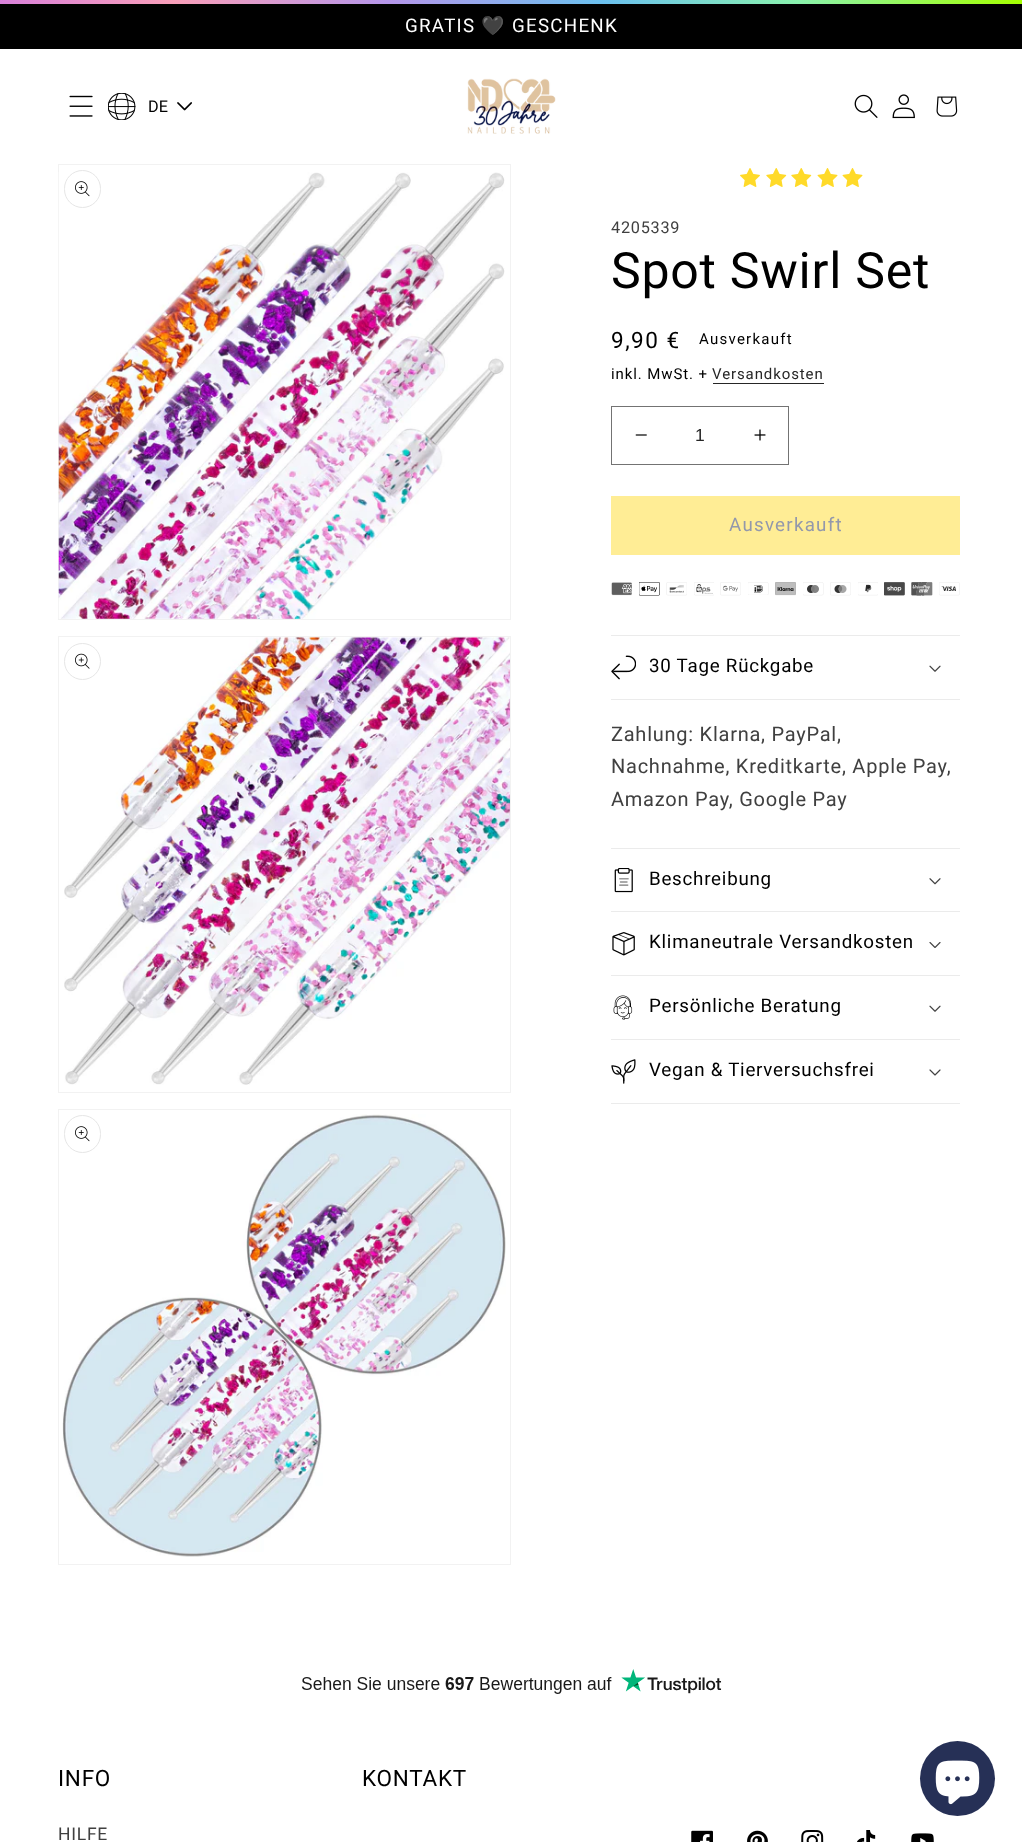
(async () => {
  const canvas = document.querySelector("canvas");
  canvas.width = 1022;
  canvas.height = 1842;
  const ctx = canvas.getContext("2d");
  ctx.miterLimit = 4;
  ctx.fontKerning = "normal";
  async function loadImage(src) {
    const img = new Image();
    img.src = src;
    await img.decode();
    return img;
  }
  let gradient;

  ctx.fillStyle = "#ffffff";
  ctx.fillRect(0, 0, 1022, 1842);
  gradient = ctx.createLinearGradient(0, 1.9, 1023, 1.9);
  gradient.addColorStop(0, "#d881da");
  gradient.addColorStop(0.17, "#f99fb9");
  gradient.addColorStop(0.38, "#b596ea");
  gradient.addColorStop(0.59, "#6bc1ef");
  gradient.addColorStop(0.78, "#8af2ae");
  gradient.addColorStop(1, "#a5ff00");
  ctx.fillStyle = gradient;
  ctx.fillRect(0, 0, 1022, 4);
  ctx.fillStyle = "#000000";
  ctx.fillRect(0, 4, 1022, 45);
  ctx.drawImage(await loadImage("img/1.png"), 69, 95, 24, 22);
  ctx.drawImage(await loadImage("img/2.png"), 108, 93, 28, 27);
  ctx.drawImage(await loadImage("img/3.png"), 177, 102, 15, 9);
  ctx.drawImage(await loadImage("img/4.png"), 467, 78, 89, 56);
  ctx.drawImage(await loadImage("img/5.png"), 854, 94, 24, 24);
  ctx.drawImage(await loadImage("img/6.png"), 892, 94, 23, 25);
  ctx.drawImage(await loadImage("img/7.png"), 936, 96, 22, 21);
  ctx.strokeStyle = "#f2f2f2";
  ctx.strokeRect(58.5, 164.5, 452, 455);
  ctx.drawImage(await loadImage("img/8.png"), 58, 172, 447, 447);
  ctx.beginPath();
  ctx.roundRect(64.5, 170.5, 36, 37, 18);
  ctx.strokeStyle = "#e6e6e6";
  ctx.stroke();
  ctx.drawImage(await loadImage("img/9.png"), 75, 181, 15, 16);
  ctx.strokeStyle = "#f2f2f2";
  ctx.strokeRect(58.5, 636.5, 452, 456);
  ctx.drawImage(await loadImage("img/10.png"), 64, 637, 446, 448);
  ctx.beginPath();
  ctx.arc(82.5, 661.5, 18, 0, Math.PI * 2);
  ctx.strokeStyle = "#e6e6e6";
  ctx.stroke();
  ctx.drawImage(await loadImage("img/11.png"), 75, 653, 15, 16);
  ctx.strokeStyle = "#f2f2f2";
  ctx.strokeRect(58.5, 1109.5, 452, 455);
  ctx.drawImage(await loadImage("img/12.png"), 62, 1114, 444, 443);
  ctx.beginPath();
  ctx.roundRect(64.5, 1115.5, 36, 37, 18);
  ctx.strokeStyle = "#e6e6e6";
  ctx.stroke();
  ctx.drawImage(await loadImage("img/9.png"), 75, 1126, 15, 16);
  ctx.drawImage(await loadImage("img/13.png"), 740, 168, 20, 19);
  ctx.drawImage(await loadImage("img/14.png"), 766, 168, 21, 19);
  ctx.drawImage(await loadImage("img/14.png"), 791, 168, 21, 19);
  ctx.drawImage(await loadImage("img/15.png"), 817, 168, 21, 19);
  ctx.drawImage(await loadImage("img/15.png"), 842, 168, 21, 19);
  ctx.fillStyle = "#262626";
  ctx.fillRect(713, 383, 111, 1);
  ctx.drawImage(await loadImage("img/16.png"), 635, 434, 12, 2);
  ctx.drawImage(await loadImage("img/17.png"), 754, 429, 12, 12);
  ctx.strokeStyle = "#737373";
  ctx.strokeRect(611.5, 406.5, 177, 58);
  ctx.fillStyle = "#ffed95";
  ctx.fillRect(611, 496, 349, 59);
  ctx.drawImage(await loadImage("img/18.png"), 611, 582, 21, 14);
  ctx.drawImage(await loadImage("img/19.png"), 639, 582, 21, 14);
  ctx.drawImage(await loadImage("img/20.png"), 666, 582, 21, 14);
  ctx.drawImage(await loadImage("img/21.png"), 694, 582, 20, 14);
  ctx.drawImage(await loadImage("img/22.png"), 720, 582, 21, 14);
  ctx.drawImage(await loadImage("img/23.png"), 748, 582, 21, 13);
  ctx.drawImage(await loadImage("img/24.png"), 775, 582, 21, 14);
  ctx.drawImage(await loadImage("img/25.png"), 803, 582, 21, 14);
  ctx.drawImage(await loadImage("img/26.png"), 830, 582, 21, 14);
  ctx.drawImage(await loadImage("img/27.png"), 858, 582, 20, 14);
  ctx.drawImage(await loadImage("img/28.png"), 884, 582, 21, 14);
  ctx.drawImage(await loadImage("img/29.png"), 911, 582, 22, 14);
  ctx.drawImage(await loadImage("img/30.png"), 939, 582, 21, 14);
  ctx.fillStyle = "#ebebeb";
  ctx.fillRect(611, 635, 349, 1);
  ctx.fillRect(611, 699, 349, 1);
  ctx.drawImage(await loadImage("img/31.png"), 611, 655, 25, 25);
  ctx.drawImage(await loadImage("img/32.png"), 929, 665, 12, 7);
  ctx.fillRect(611, 848, 349, 1);
  ctx.fillRect(611, 911, 349, 1);
  ctx.drawImage(await loadImage("img/33.png"), 614, 868, 19, 25);
  ctx.drawImage(await loadImage("img/34.png"), 929, 878, 12, 7);
  ctx.fillRect(611, 975, 349, 1);
  ctx.drawImage(await loadImage("img/35.png"), 612, 932, 23, 24);
  ctx.drawImage(await loadImage("img/36.png"), 929, 942, 12, 6);
  ctx.fillRect(611, 1039, 349, 1);
  ctx.drawImage(await loadImage("img/37.png"), 613, 995, 20, 25);
  ctx.drawImage(await loadImage("img/32.png"), 929, 1005, 12, 7);
  ctx.fillRect(611, 1103, 349, 1);
  ctx.drawImage(await loadImage("img/38.png"), 611, 1059, 25, 25);
  ctx.drawImage(await loadImage("img/39.png"), 929, 1069, 12, 7);
  ctx.drawImage(await loadImage("img/40.png"), 301, 1669, 421, 25);
  ctx.drawImage(await loadImage("img/41.png"), 691, 1830, 22, 12);
  ctx.drawImage(await loadImage("img/42.png"), 747, 1830, 21, 12);
  ctx.drawImage(await loadImage("img/43.png"), 801, 1830, 23, 12);
  ctx.drawImage(await loadImage("img/44.png"), 857, 1830, 19, 12);
  ctx.drawImage(await loadImage("img/45.png"), 911, 1833, 23, 9);
  ctx.fillStyle = "#263056";
  ctx.beginPath();
  ctx.arc(957.5, 1778.5, 37.5, 0, Math.PI * 2);
  ctx.fill();
  ctx.drawImage(await loadImage("img/46.png"), 935, 1760, 45, 45);
  ctx.letterSpacing = "1.25px";
  ctx.font = "18.75px Roboto";
  ctx.fillStyle = "#ffffff";
  ctx.fillText("GRATIS", 405, 32);
  ctx.font = "18.75px Noto Color Emoji";
  ctx.fillText("🖤", 481, 32);
  ctx.font = "18.75px Roboto";
  ctx.fillText("GESCHENK", 512, 32);
  ctx.letterSpacing = "0px";
  ctx.font = "16.25px Roboto";
  ctx.fillStyle = "#000000";
  ctx.fillText("DE", 148, 112);
  ctx.letterSpacing = "0.75px";
  ctx.fillStyle = "#404040";
  ctx.fillText("4205339", 611, 233);
  ctx.font = "50px Roboto";
  ctx.fillStyle = "#000000";
  ctx.fillText("Spot Swirl Set", 611, 288);
  ctx.letterSpacing = "1.5px";
  ctx.font = "22.5px Roboto";
  ctx.fillText("9,90 €", 611, 348);
  ctx.letterSpacing = "1.25px";
  ctx.font = "15px Roboto";
  ctx.fillText("Ausverkauft", 699, 344);
  ctx.letterSpacing = "0.9px";
  ctx.fillText("inkl. MwSt. +", 611, 379);
  ctx.fillStyle = "#262626";
  ctx.fillText("Versandkosten", 712, 379);
  ctx.letterSpacing = "0px";
  ctx.font = "17.5px Liberation Sans";
  ctx.fillText("1", 695, 441);
  ctx.letterSpacing = "1.25px";
  ctx.font = "18.75px Roboto";
  ctx.fillStyle = "#9398ab";
  ctx.fillText("Ausverkauft", 729, 531);
  ctx.letterSpacing = "0.75px";
  ctx.fillStyle = "#000000";
  ctx.fillText("30 Tage Rückgabe", 649, 672);
  ctx.font = "20px Roboto";
  ctx.fillStyle = "#404040";
  for (const [text, x, y] of [
    ["Zahlung: Klarna, PayPal,", 611, 741],
    ["Nachnahme, Kreditkarte, Apple Pay,", 611, 773],
    ["Amazon Pay, Google Pay", 611, 806],
  ]) {
    ctx.fillText(text, x, y);
  }
  ctx.font = "18.75px Roboto";
  ctx.fillStyle = "#000000";
  for (const [text, x, y] of [
    ["Beschreibung", 649, 885],
    ["Klimaneutrale Versandkosten", 649, 948],
    ["Persönliche Beratung", 649, 1012],
    ["Vegan & Tierversuchsfrei", 649, 1076],
  ]) {
    ctx.fillText(text, x, y);
  }
  ctx.font = "22.5px Roboto";
  ctx.fillText("INFO", 58, 1786);
  ctx.font = "17.5px Roboto";
  ctx.fillStyle = "#404040";
  ctx.fillText("HILFE", 58, 1840);
  ctx.font = "22.5px Roboto";
  ctx.fillStyle = "#000000";
  ctx.fillText("KONTAKT", 362, 1786);
})();
